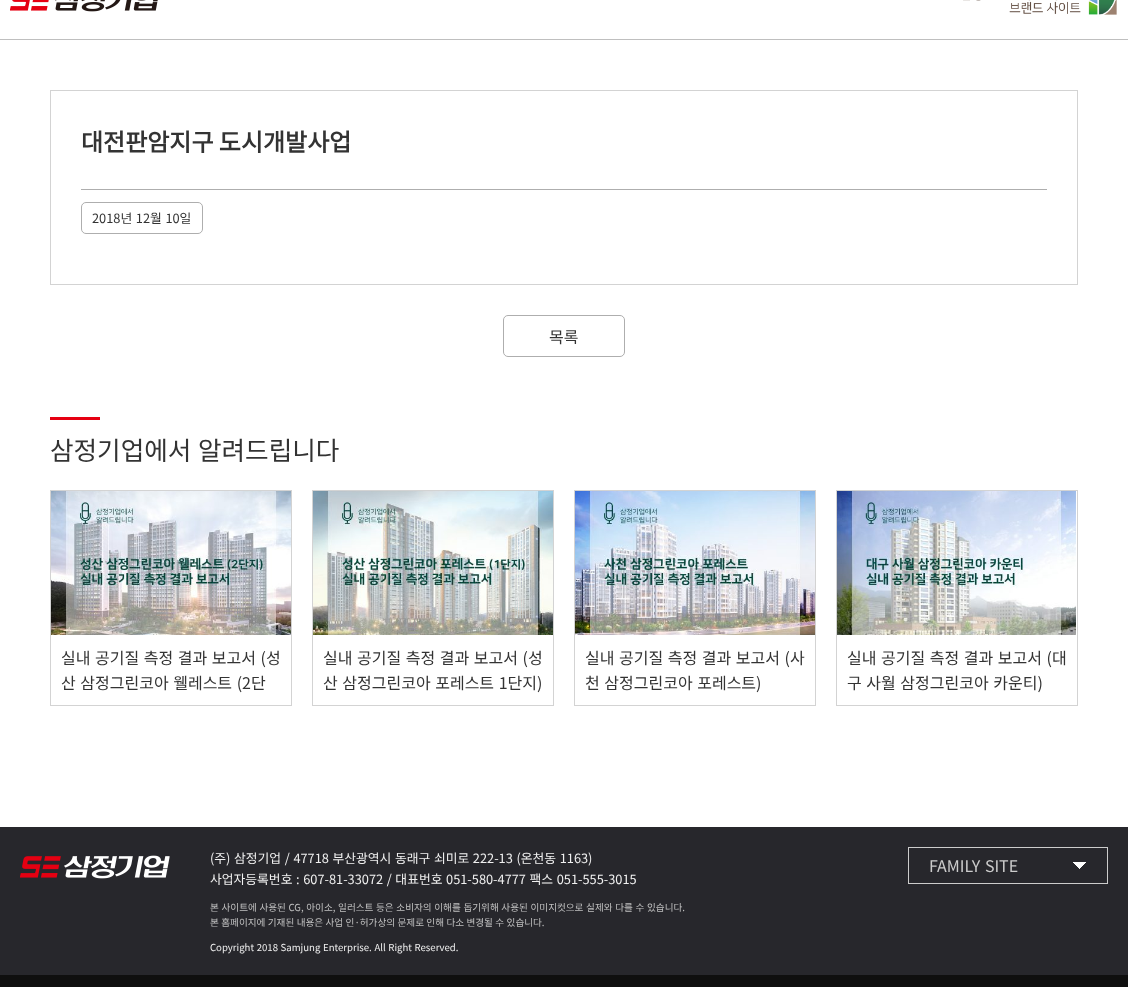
(async () => {
  const canvas = document.querySelector("canvas");
  canvas.width = 1128;
  canvas.height = 987;
  const ctx = canvas.getContext("2d");
  ctx.miterLimit = 4;
  ctx.fontKerning = "normal";
  async function loadImage(src) {
    const img = new Image();
    img.src = src;
    await img.decode();
    return img;
  }

  ctx.fillStyle = "#ffffff";
  ctx.fillRect(0, 0, 1128, 987);
  ctx.fillStyle = "#bfbfbf";
  ctx.fillRect(0, 39, 1128, 1);
  ctx.drawImage(await loadImage("img/1.png"), 10, 0, 148, 12);
  ctx.drawImage(await loadImage("img/2.png"), 963, 0, 154, 15);
  ctx.strokeStyle = "#d3d3d3";
  ctx.strokeRect(50.5, 90.5, 1027, 194);
  ctx.fillStyle = "#aeaeae";
  ctx.fillRect(81, 189, 966, 1);
  ctx.beginPath();
  ctx.roundRect(81.5, 202.5, 121, 31, 4.5);
  ctx.strokeStyle = "#aeaeae";
  ctx.stroke();
  ctx.beginPath();
  ctx.roundRect(503.5, 315.5, 121, 41, 4.5);
  ctx.stroke();
  ctx.fillStyle = "#e60012";
  ctx.fillRect(50, 417, 50, 3);
  ctx.strokeStyle = "#d3d3d3";
  ctx.strokeRect(50.5, 490.5, 241, 215);
  ctx.drawImage(await loadImage("img/3.png"), 51, 491, 240, 144);
  ctx.strokeRect(312.5, 490.5, 241, 215);
  ctx.drawImage(await loadImage("img/4.png"), 313, 491, 240, 144);
  ctx.strokeRect(574.5, 490.5, 241, 215);
  ctx.drawImage(await loadImage("img/5.png"), 575, 491, 240, 144);
  ctx.strokeRect(836.5, 490.5, 241, 215);
  ctx.drawImage(await loadImage("img/6.png"), 837, 491, 239, 144);
  ctx.fillStyle = "#27272c";
  ctx.fillRect(0, 827, 1128, 148);
  ctx.fillStyle = "#0f0f0f";
  ctx.fillRect(0, 975, 1128, 12);
  ctx.drawImage(await loadImage("img/7.png"), 20, 855, 150, 24);
  ctx.strokeStyle = "#cccccc";
  ctx.strokeRect(908.5, 847.5, 199, 36);
  ctx.drawImage(await loadImage("img/8.png"), 1073, 862, 13, 7);
  ctx.font = "bold 24px Noto Sans KR";
  ctx.fillStyle = "#333333";
  ctx.fillText("대전판암지구 도시개발사업", 81, 151);
  ctx.wordSpacing = "0.75px";
  ctx.font = "100 12.8px Noto Sans KR";
  ctx.fillText("2018년 12월 10일", 92, 223);
  ctx.wordSpacing = "0px";
  ctx.font = "100 16px Noto Sans KR";
  ctx.fillText("목록", 549, 343);
  ctx.wordSpacing = "1px";
  ctx.font = "100 25.6px Noto Sans KR";
  ctx.fillText("삼정기업에서 알려드립니다", 50, 460);
  ctx.font = "100 16px Noto Sans KR";
  for (const [text, x, y] of [
    ["실내 공기질 측정 결과 보고서 (성", 61, 664],
    ["산 삼정그린코아 웰레스트 (2단", 61, 689],
    ["실내 공기질 측정 결과 보고서 (성", 323, 664],
    ["산 삼정그린코아 포레스트 1단지)", 323, 689],
    ["실내 공기질 측정 결과 보고서 (사", 585, 664],
    ["천 삼정그린코아 포레스트)", 585, 689],
    ["실내 공기질 측정 결과 보고서 (대", 847, 664],
    ["구 사월 삼정그린코아 카운티)", 847, 689],
  ]) {
    ctx.fillText(text, x, y);
  }
  ctx.wordSpacing = "0.75px";
  ctx.font = "100 12.8px Noto Sans KR";
  ctx.fillStyle = "#f0f0f0";
  ctx.fillText("(주) 삼정기업 / 47718 부산광역시 동래구 쇠미로 222-13 (온천동 1163)", 210, 863);
  ctx.fillText("사업자등록번호 : 607-81-33072 / 대표번호 051-580-4777 팩스 051-555-3015", 210, 884);
  ctx.wordSpacing = "0.5px";
  ctx.font = "100 9.6px Noto Sans KR";
  ctx.fillStyle = "#c0c0c0";
  ctx.fillText("본 사이트에 사용된 CG, 아이소, 일러스트 등은 소비자의 이해를 돕기위해 사용된 이미지컷으로 실제와 다를 수 있습니다.", 210, 911);
  ctx.wordSpacing = "0.25px";
  ctx.fillText("본 홈페이지에 기재된 내용은 사업 인·허가상의 문제로 인해 다소 변경될 수 있습니다.", 210, 926);
  ctx.wordSpacing = "0.5px";
  ctx.fillStyle = "#f0f0f0";
  ctx.fillText("Copyright 2018 Samjung Enterprise. All Right Reserved.", 210, 951);
  ctx.wordSpacing = "1px";
  ctx.font = "100 16px Noto Sans KR";
  ctx.fillStyle = "#cccccc";
  ctx.fillText("FAMILY SITE", 929, 872);
})();
